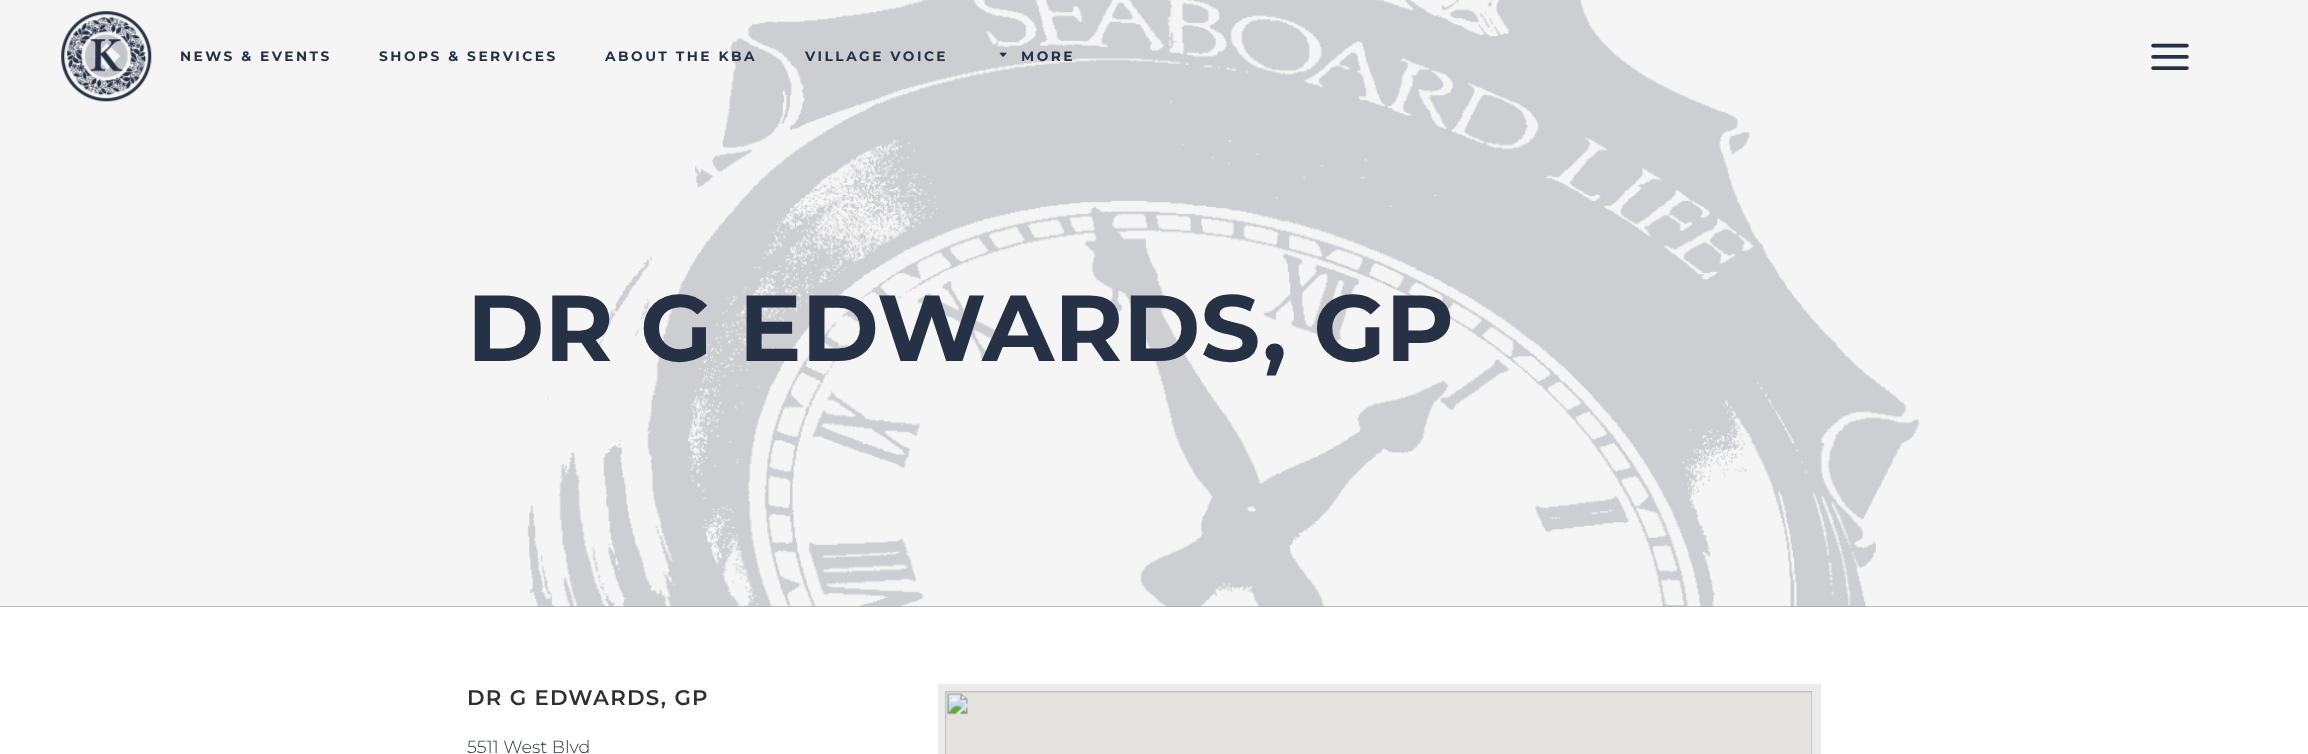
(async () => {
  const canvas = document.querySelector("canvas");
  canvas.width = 2308;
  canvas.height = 754;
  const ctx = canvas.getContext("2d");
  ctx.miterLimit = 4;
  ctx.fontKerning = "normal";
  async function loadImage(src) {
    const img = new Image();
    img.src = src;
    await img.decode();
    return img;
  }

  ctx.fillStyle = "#ffffff";
  ctx.fillRect(0, 0, 2308, 754);
  ctx.fillStyle = "#a2a7af";
  ctx.fillRect(0, 606, 2308, 1);
  ctx.drawImage(await loadImage("img/4.png"), 0, 0, 2308, 607);
  ctx.drawImage(await loadImage("img/1.png"), 61, 11, 91, 91);
  ctx.drawImage(await loadImage("img/2.png"), 999, 52, 8, 5);
  ctx.drawImage(await loadImage("img/3.png"), 2151, 43, 38, 27);
  ctx.strokeStyle = "#ebebeb";
  ctx.lineWidth = 8;
  ctx.strokeRect(942, 688, 875, 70);
  ctx.drawImage(await loadImage("img/5.png"), 945, 691, 868, 63);
  ctx.letterSpacing = "2.5px";
  ctx.font = "bold 13.75px Montserrat";
  ctx.fillStyle = "#263145";
  for (const [text, x, y] of [
    ["NEWS & EVENTS", 180, 61],
    ["SHOPS & SERVICES", 379, 61],
    ["ABOUT THE KBA", 605, 61],
    ["VILLAGE VOICE", 805, 61],
    ["MORE", 1021, 61],
  ]) {
    ctx.fillText(text, x, y);
  }
  ctx.letterSpacing = "0px";
  ctx.font = "bold 93.75px Montserrat";
  ctx.fillText("DR G EDWARDS, GP", 467, 361);
  ctx.letterSpacing = "1.25px";
  ctx.font = "600 21.25px Montserrat";
  ctx.fillStyle = "#303030";
  ctx.fillText("DR G EDWARDS, GP", 467, 705);
  ctx.letterSpacing = "0px";
  ctx.font = "300 17.5px Montserrat";
  ctx.fillStyle = "#263145";
  ctx.fillText("5511 West Blvd", 467, 753);
})();
